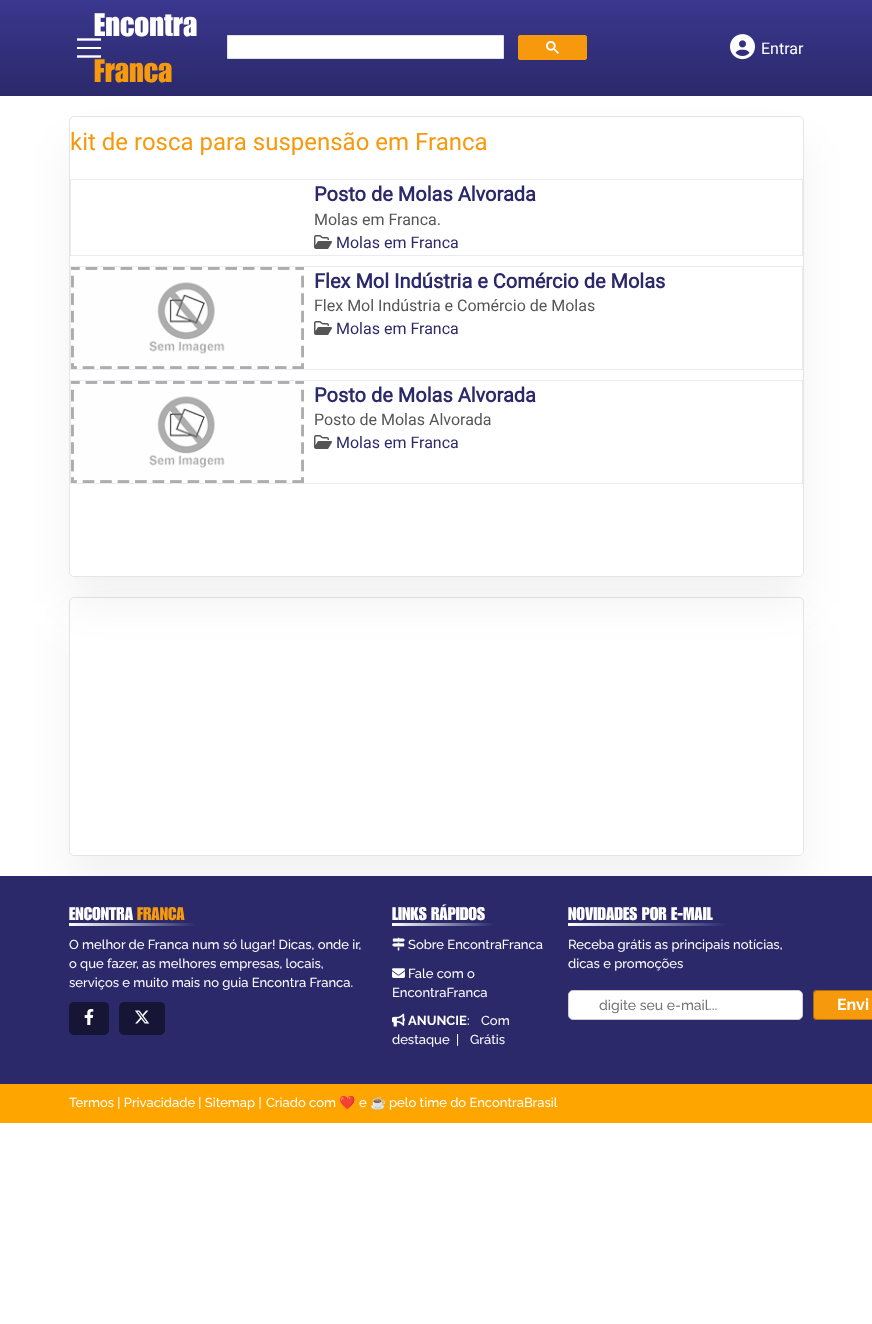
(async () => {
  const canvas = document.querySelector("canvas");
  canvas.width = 872;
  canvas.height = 1324;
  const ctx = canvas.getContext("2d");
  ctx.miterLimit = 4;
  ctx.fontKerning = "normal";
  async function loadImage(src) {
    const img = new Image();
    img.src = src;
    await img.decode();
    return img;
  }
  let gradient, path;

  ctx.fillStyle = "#ffffff";
  ctx.fillRect(0, 0, 872, 1324);
  ctx.save();
  path = new Path2D("M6 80H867V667H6ZM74 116H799C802 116 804 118 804 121V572C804 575 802 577 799 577H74C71 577 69 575 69 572V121C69 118 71 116 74 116Z");
  ctx.clip(path, "evenodd");
  ctx.fillStyle = "rgba(0, 0, 0, 0.05)";
  ctx.filter = "blur(20.5px)";
  ctx.beginPath();
  ctx.roundRect(69, 143, 735, 461, 5);
  ctx.fill();
  ctx.filter = "none";
  ctx.restore();
  gradient = ctx.createLinearGradient(436, 0, 436, 96);
  gradient.addColorStop(0, "#3a378f");
  gradient.addColorStop(1, "#2b296a");
  ctx.fillStyle = gradient;
  ctx.fillRect(0, 0, 872, 96);
  path = new Path2D("M77 39.5H101");
  ctx.strokeStyle = "#fefefe";
  ctx.lineWidth = 2.4;
  ctx.stroke(path);
  ctx.fillStyle = "#fefefe";
  ctx.fillRect(77, 47, 24, 2);
  path = new Path2D("M77 56.5H101");
  ctx.stroke(path);
  ctx.fillStyle = "#ffffff";
  ctx.beginPath();
  ctx.rect(227.5, 35.5, 276, 23);
  ctx.fill();
  ctx.strokeStyle = "#dfe1e5";
  ctx.lineWidth = 1;
  ctx.stroke();
  ctx.fillStyle = "#f6990d";
  ctx.beginPath();
  ctx.roundRect(518.5, 35.5, 68, 24, 1.5);
  ctx.fill();
  ctx.strokeStyle = "#f6990d";
  ctx.stroke();
  ctx.drawImage(await loadImage("img/1.png"), 546, 41, 13, 13);
  ctx.drawImage(await loadImage("img/2.png"), 730, 34, 25, 26);
  ctx.beginPath();
  ctx.roundRect(69.5, 116.5, 734, 460, 4.5);
  ctx.strokeStyle = "rgba(0, 0, 0, 0.1)";
  ctx.stroke();
  ctx.strokeStyle = "#eaeaf0";
  ctx.strokeRect(70.5, 179.5, 732, 76);
  ctx.drawImage(await loadImage("img/3.png"), 314, 235, 18, 14);
  ctx.strokeRect(70.5, 266.5, 732, 103);
  ctx.drawImage(await loadImage("img/4.png"), 71, 267, 233, 102);
  ctx.drawImage(await loadImage("img/3.png"), 314, 321, 18, 14);
  ctx.strokeRect(70.5, 380.5, 732, 103);
  ctx.drawImage(await loadImage("img/4.png"), 71, 381, 233, 102);
  ctx.drawImage(await loadImage("img/3.png"), 314, 435, 18, 14);
  ctx.save();
  path = new Path2D("M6 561H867V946H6ZM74 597H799C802 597 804 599 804 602V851C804 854 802 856 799 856H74C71 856 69 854 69 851V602C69 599 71 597 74 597Z");
  ctx.clip(path, "evenodd");
  ctx.fillStyle = "rgba(0, 0, 0, 0.05)";
  ctx.filter = "blur(20.5px)";
  ctx.beginPath();
  ctx.roundRect(69, 624, 735, 259, 5);
  ctx.fill();
  ctx.filter = "none";
  ctx.restore();
  ctx.beginPath();
  ctx.roundRect(69.5, 597.5, 734, 258, 4.5);
  ctx.strokeStyle = "rgba(0, 0, 0, 0.1)";
  ctx.stroke();
  ctx.fillStyle = "#2b296a";
  ctx.fillRect(0, 876, 872, 208);
  gradient = ctx.createLinearGradient(69, 925, 196, 925);
  gradient.addColorStop(0, "#ffffff");
  gradient.addColorStop(1, "#2b296a");
  ctx.fillStyle = gradient;
  ctx.fillRect(69, 923, 127, 3);
  ctx.fillStyle = "#161535";
  ctx.beginPath();
  ctx.roundRect(69, 1002, 40, 33, 5);
  ctx.fill();
  ctx.drawImage(await loadImage("img/5.png"), 84, 1009, 10, 16);
  ctx.beginPath();
  ctx.roundRect(119, 1002, 46, 33, 5);
  ctx.fill();
  ctx.drawImage(await loadImage("img/6.png"), 135, 1010, 15, 14);
  gradient = ctx.createLinearGradient(392, 925, 494, 925);
  gradient.addColorStop(0, "#ffffff");
  gradient.addColorStop(1, "#2b296a");
  ctx.fillStyle = gradient;
  ctx.fillRect(392, 923, 102, 3);
  ctx.drawImage(await loadImage("img/7.png"), 392, 937, 13, 14);
  ctx.drawImage(await loadImage("img/8.png"), 392, 968, 13, 10);
  ctx.drawImage(await loadImage("img/9.png"), 392, 1013, 13, 14);
  gradient = ctx.createLinearGradient(568, 925, 727, 925);
  gradient.addColorStop(0, "#ffffff");
  gradient.addColorStop(1, "#2b296a");
  ctx.fillStyle = gradient;
  ctx.fillRect(568, 923, 159, 3);
  ctx.fillStyle = "#ffffff";
  ctx.beginPath();
  ctx.roundRect(568.5, 990.5, 234, 29, 4.5);
  ctx.fill();
  ctx.strokeStyle = "#cccccc";
  ctx.stroke();
  ctx.fillStyle = "#f6990d";
  ctx.beginPath();
  ctx.roundRect(813, 990, 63, 30, 4);
  ctx.fill();
  ctx.beginPath();
  ctx.roundRect(813.5, 990.5, 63, 29, 3.5);
  ctx.strokeStyle = "rgba(0, 0, 0, 0.3)";
  ctx.stroke();
  ctx.fillStyle = "#ffa500";
  ctx.fillRect(0, 1084, 872, 39);
  ctx.font = "500 32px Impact";
  ctx.fillStyle = "#fefefe";
  ctx.fillText("Encontra", 94, 36);
  ctx.fillStyle = "#f6990d";
  ctx.fillText("Franca", 94, 82);
  ctx.font = "16px Roboto";
  ctx.fillStyle = "#fefefe";
  ctx.fillText("Entrar", 761, 54);
  ctx.font = "24px Roboto";
  ctx.fillStyle = "#f6990d";
  ctx.fillText("kit de rosca para suspensão em Franca", 70, 150);
  ctx.font = "bold 20px Roboto";
  ctx.fillStyle = "#2b296a";
  ctx.fillText("Posto de Molas Alvorada", 314, 201);
  ctx.font = "16px Roboto";
  ctx.fillStyle = "#555555";
  ctx.fillText("Molas em Franca.", 314, 225);
  ctx.fillStyle = "#2b296a";
  ctx.fillText("Molas em Franca", 336, 248);
  ctx.font = "bold 20px Roboto";
  ctx.fillText("Flex Mol Indústria e Comércio de Molas", 314, 288);
  ctx.font = "16px Roboto";
  ctx.fillStyle = "#555555";
  ctx.fillText("Flex Mol Indústria e Comércio de Molas", 314, 311);
  ctx.fillStyle = "#2b296a";
  ctx.fillText("Molas em Franca", 336, 334);
  ctx.font = "bold 20px Roboto";
  ctx.fillText("Posto de Molas Alvorada", 314, 402);
  ctx.font = "16px Roboto";
  ctx.fillStyle = "#555555";
  ctx.fillText("Posto de Molas Alvorada", 314, 425);
  ctx.fillStyle = "#2b296a";
  ctx.fillText("Molas em Franca", 336, 448);
  ctx.font = "500 18px Impact";
  ctx.fillStyle = "#fefefe";
  ctx.fillText("ENCONTRA", 69, 920);
  ctx.fillStyle = "#f6990d";
  ctx.fillText("FRANCA", 137, 920);
  ctx.font = "500 13px Raleway";
  ctx.fillStyle = "#fefefe";
  for (const [text, x, y] of [
    ["O melhor de Franca num só lugar! Dicas, onde ir,", 69, 949],
    ["o que fazer, as melhores empresas, locais,", 69, 968],
    ["serviços e muito mais no guia Encontra Franca.", 69, 987],
  ]) {
    ctx.fillText(text, x, y);
  }
  ctx.font = "500 18px Impact";
  ctx.fillText("LINKS RÁPIDOS", 392, 920);
  ctx.font = "500 13px Raleway";
  for (const [text, x, y] of [
    ["Sobre EncontraFranca", 408, 949],
    ["Fale com o", 408, 978],
    ["EncontraFranca", 392, 997],
  ]) {
    ctx.fillText(text, x, y);
  }
  ctx.font = "bold 13px Raleway";
  ctx.fillText("ANUNCIE", 408, 1025);
  ctx.font = "500 13px Raleway";
  for (const [text, x, y] of [
    [":", 467, 1025],
    ["Com", 481, 1025],
    ["destaque", 392, 1044],
    ["|", 456, 1044],
    ["Grátis", 470, 1044],
  ]) {
    ctx.fillText(text, x, y);
  }
  ctx.font = "500 18px Impact";
  ctx.fillText("NOVIDADES POR E-MAIL", 568, 920);
  ctx.font = "500 13px Raleway";
  ctx.fillText("Receba grátis as principais notícias,", 568, 949);
  ctx.fillText("dicas e promoções", 568, 968);
  ctx.font = "500 14px Raleway";
  ctx.fillStyle = "#757575";
  ctx.fillText("digite seu e-mail...", 599, 1010);
  ctx.font = "bold 16px Raleway";
  ctx.fillStyle = "#fefefe";
  ctx.fillText("Envi", 837, 1010);
  ctx.font = "500 13px Raleway";
  ctx.fillText("Termos | Privacidade | Sitemap |", 69, 1107);
  ctx.fillText("Criado com", 266, 1107);
  ctx.font = "13px Noto Color Emoji";
  ctx.fillText("❤️", 339, 1107);
  ctx.font = "500 13px Raleway";
  ctx.fillText("e", 359, 1107);
  ctx.font = "13px Noto Color Emoji";
  ctx.fillText("☕", 370, 1107);
  ctx.font = "500 13px Raleway";
  ctx.fillText("pelo time do EncontraBrasil", 389, 1107);
})();
